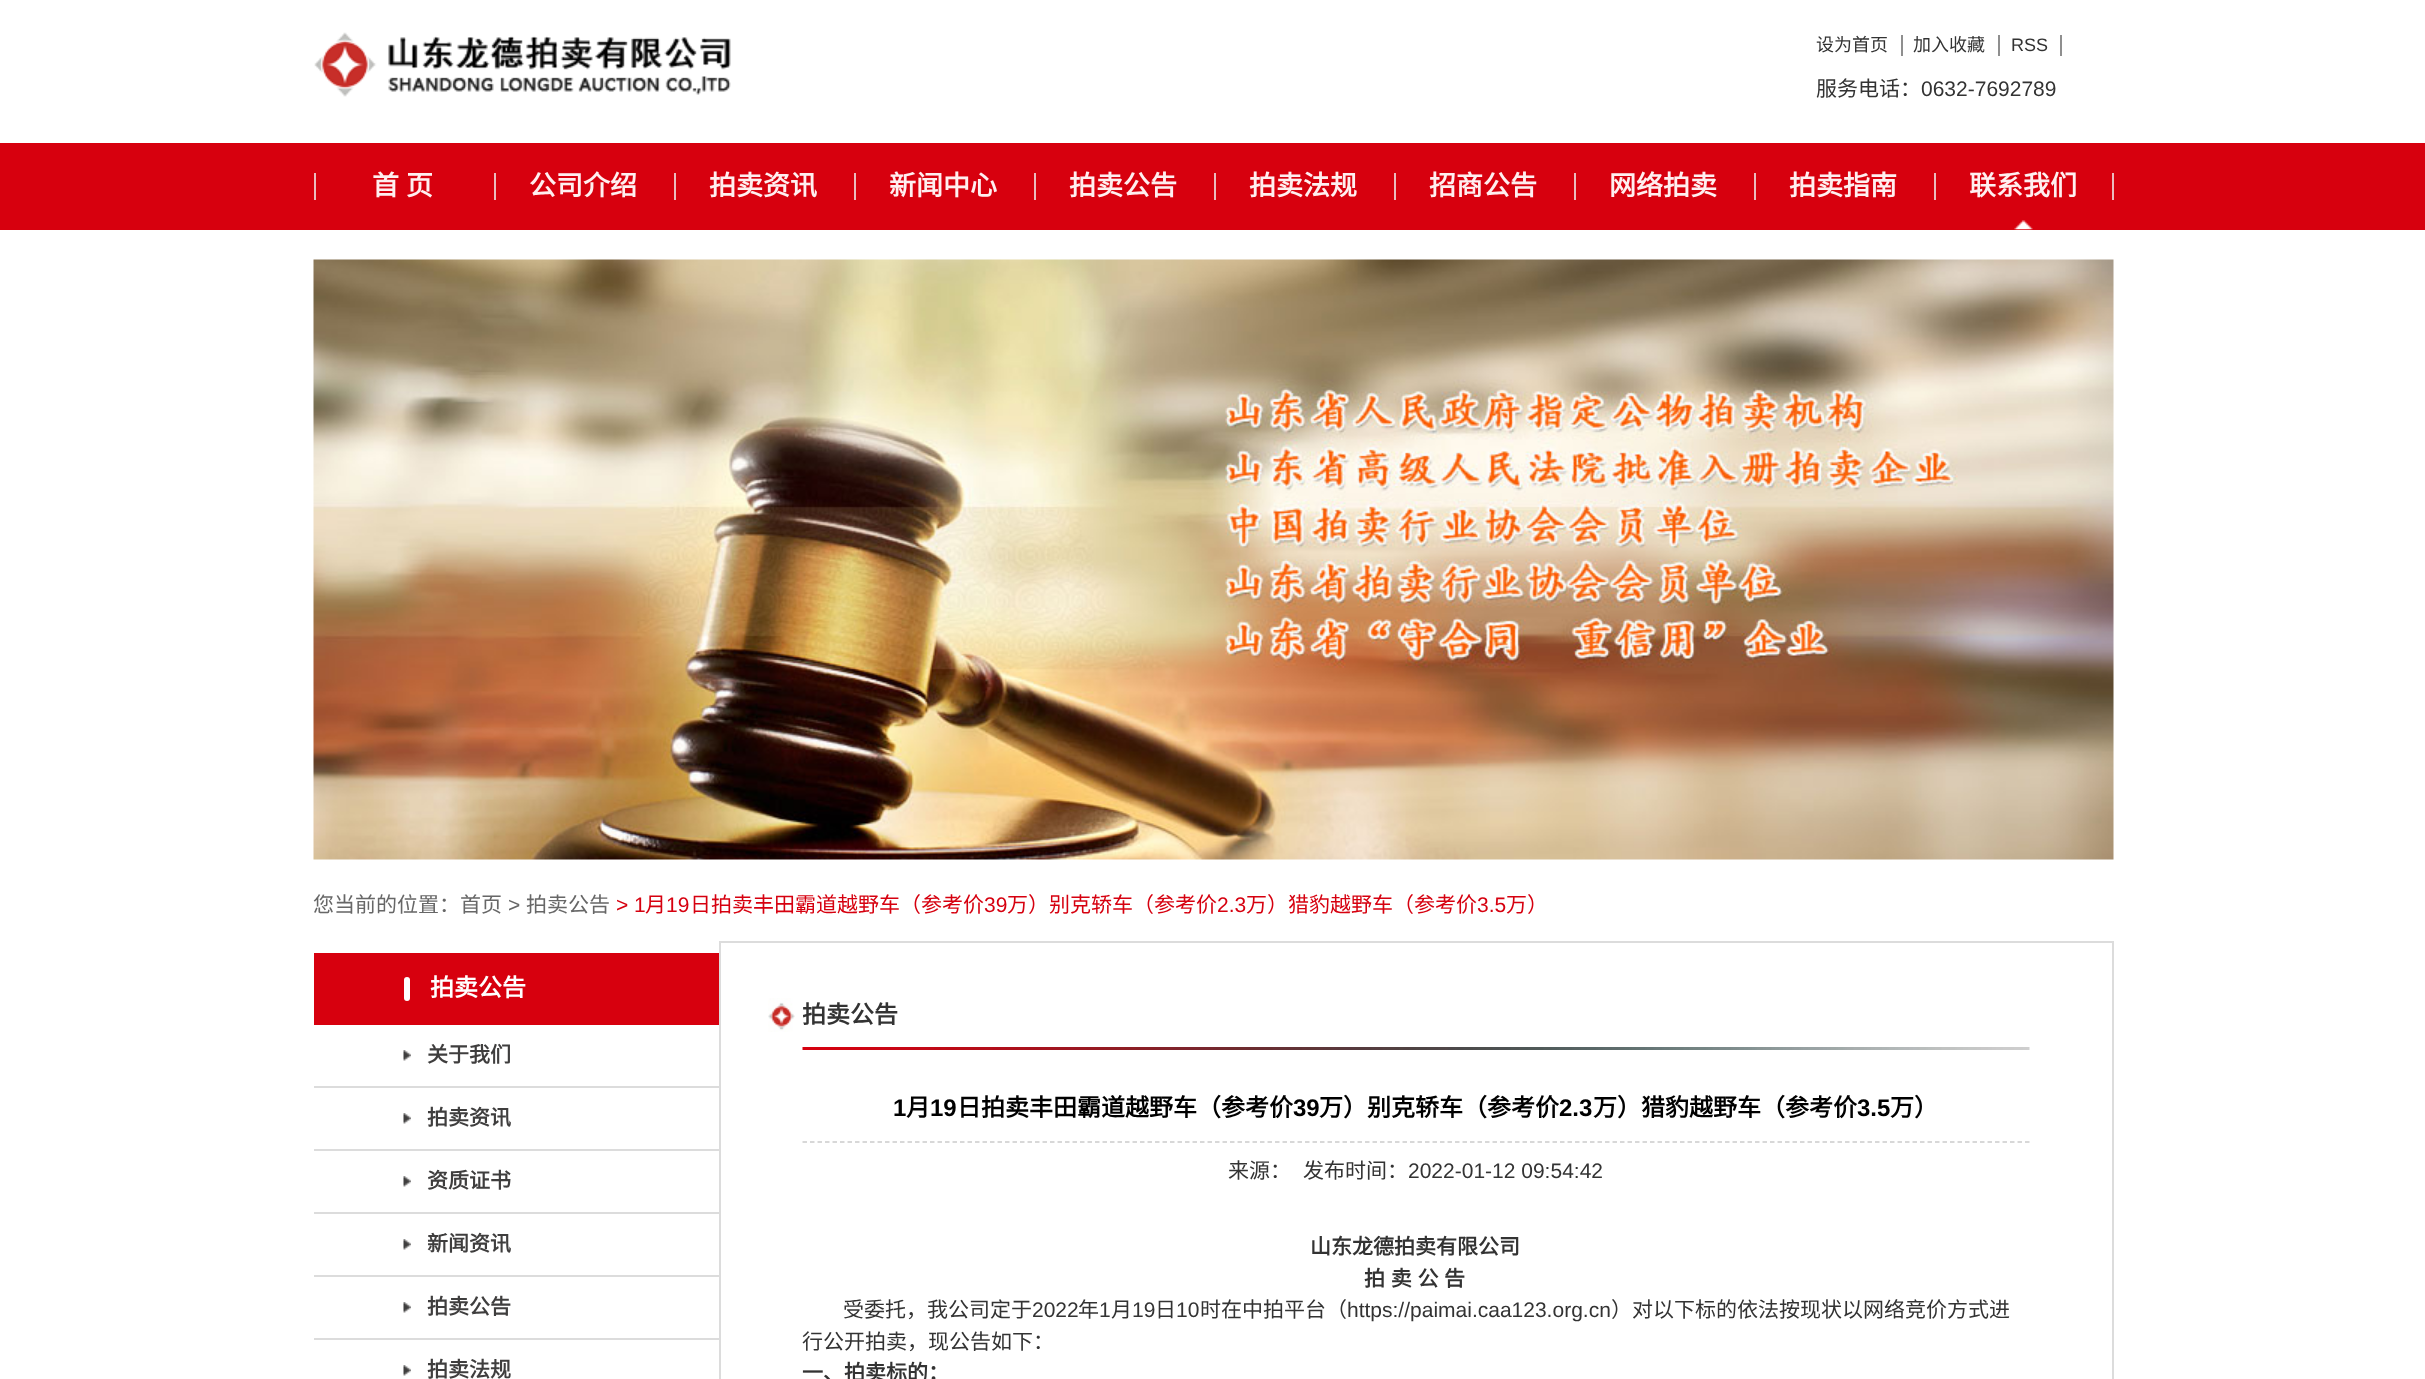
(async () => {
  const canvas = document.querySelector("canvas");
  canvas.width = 2425;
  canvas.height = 1379;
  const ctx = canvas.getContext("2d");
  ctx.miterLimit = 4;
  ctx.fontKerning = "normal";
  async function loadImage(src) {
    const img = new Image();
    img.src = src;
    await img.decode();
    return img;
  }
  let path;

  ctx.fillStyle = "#ffffff";
  ctx.fillRect(0, 0, 2425, 1379);
  ctx.drawImage(await loadImage("img/1.png"), 314, 32, 417, 65);
  for (const [x, y, w, h, color] of [
    [1901, 35, 2, 21, "#8f8f8f"],
    [1998, 35, 2, 21, "#8f8f8f"],
    [2060, 35, 2, 21, "#8f8f8f"],
    [0, 143, 2425, 87, "#d7000e"],
    [314, 173, 2, 27, "#ebbbbe"],
    [494, 173, 2, 27, "#ebbbbe"],
    [674, 173, 2, 27, "#ebbbbe"],
    [854, 173, 2, 27, "#ebbbbe"],
    [1034, 173, 2, 27, "#ebbbbe"],
    [1214, 173, 2, 27, "#ebbbbe"],
    [1394, 173, 2, 27, "#ebbbbe"],
    [1574, 173, 2, 27, "#ebbbbe"],
    [1754, 173, 2, 27, "#ebbbbe"],
    [1934, 173, 2, 27, "#ebbbbe"],
  ]) {
    ctx.fillStyle = color;
    ctx.fillRect(x, y, w, h);
  }
  ctx.drawImage(await loadImage("img/2.png"), 2014, 220, 19, 10);
  ctx.fillRect(2112, 173, 2, 27);
  ctx.drawImage(await loadImage("img/3.png"), 313, 259, 1801, 601);
  ctx.fillStyle = "#d7000e";
  ctx.fillRect(314, 953, 405, 72);
  ctx.fillStyle = "#ffffff";
  ctx.beginPath();
  ctx.roundRect(404, 977, 6, 24, 3);
  ctx.fill();
  ctx.fillStyle = "#dcdcdc";
  ctx.fillRect(314, 1086, 405, 2);
  ctx.drawImage(await loadImage("img/4.png"), 403, 1050, 8, 11);
  ctx.fillRect(314, 1149, 405, 2);
  ctx.drawImage(await loadImage("img/4.png"), 403, 1113, 8, 11);
  ctx.fillRect(314, 1212, 405, 2);
  ctx.drawImage(await loadImage("img/4.png"), 403, 1176, 8, 11);
  ctx.fillRect(314, 1275, 405, 2);
  ctx.drawImage(await loadImage("img/4.png"), 403, 1239, 8, 11);
  ctx.fillRect(314, 1338, 405, 2);
  ctx.drawImage(await loadImage("img/4.png"), 403, 1302, 8, 11);
  ctx.drawImage(await loadImage("img/4.png"), 403, 1365, 8, 11);
  ctx.strokeStyle = "#dcdcdc";
  ctx.lineWidth = 2;
  ctx.strokeRect(720, 942, 1393, 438);
  ctx.drawImage(await loadImage("img/5.png"), 768, 998, 27, 34);
  ctx.drawImage(await loadImage("img/6.png"), 802, 1047, 1228, 3);
  path = new Path2D("M802.5 1142H2029.5");
  ctx.strokeStyle = "#cccccc";
  ctx.lineWidth = 1.5;
  ctx.setLineDash([4.5, 3]);
  ctx.stroke(path);
  ctx.font = "18px Noto Sans CJK SC";
  ctx.fillStyle = "#333333";
  ctx.fillText("设为首页", 1816, 51);
  ctx.fillText("加入收藏", 1913, 51);
  ctx.font = "18px Liberation Sans";
  ctx.fillText("RSS", 2011, 51);
  ctx.font = "21px Noto Sans CJK SC";
  ctx.fillText("服务电话：", 1816, 96);
  ctx.font = "21px Liberation Sans";
  ctx.fillText("0632-7692789", 1921, 96);
  ctx.wordSpacing = "1px";
  ctx.font = "bold 27px Noto Sans CJK SC";
  ctx.fillStyle = "#ffeff0";
  ctx.fillText("首 页", 372, 195);
  ctx.wordSpacing = "0px";
  for (const [text, x, y] of [
    ["公司介绍", 529, 195],
    ["拍卖资讯", 709, 195],
    ["新闻中心", 889, 195],
    ["拍卖公告", 1069, 195],
    ["拍卖法规", 1249, 195],
    ["招商公告", 1429, 195],
    ["网络拍卖", 1609, 195],
    ["拍卖指南", 1789, 195],
    ["联系我们", 1969, 195],
  ]) {
    ctx.fillText(text, x, y);
  }
  ctx.font = "21px Noto Sans CJK SC";
  ctx.fillStyle = "#676767";
  ctx.fillText("您当前的位置：首页", 313, 912);
  ctx.font = "21px Liberation Sans";
  ctx.fillText(">", 508, 912);
  ctx.font = "21px Noto Sans CJK SC";
  ctx.fillText("拍卖公告", 526, 912);
  ctx.font = "21px Liberation Sans";
  ctx.fillStyle = "#d6000f";
  ctx.fillText("> 1", 616, 912);
  ctx.font = "21px Noto Sans CJK SC";
  ctx.fillText("月", 645, 912);
  ctx.font = "21px Liberation Sans";
  ctx.fillText("19", 666, 912);
  ctx.font = "21px Noto Sans CJK SC";
  ctx.fillText("日拍卖丰田霸道越野车（参考价", 690, 912);
  ctx.font = "21px Liberation Sans";
  ctx.fillText("39", 984, 912);
  ctx.font = "21px Noto Sans CJK SC";
  ctx.fillText("万）别克轿车（参考价", 1007, 912);
  ctx.font = "21px Liberation Sans";
  ctx.fillText("2.3", 1217, 912);
  ctx.font = "21px Noto Sans CJK SC";
  ctx.fillText("万）猎豹越野车（参考价", 1246, 912);
  ctx.font = "21px Liberation Sans";
  ctx.fillText("3.5", 1477, 912);
  ctx.font = "21px Noto Sans CJK SC";
  ctx.fillText("万）", 1506, 912);
  ctx.font = "bold 24px Noto Sans CJK SC";
  ctx.fillStyle = "#ffffff";
  ctx.fillText("拍卖公告", 430, 996);
  ctx.font = "bold 21px Noto Sans CJK SC";
  ctx.fillStyle = "#3f3e3e";
  for (const [text, x, y] of [
    ["关于我们", 427, 1062],
    ["拍卖资讯", 427, 1125],
    ["资质证书", 427, 1188],
    ["新闻资讯", 427, 1251],
    ["拍卖公告", 427, 1314],
    ["拍卖法规", 427, 1377],
  ]) {
    ctx.fillText(text, x, y);
  }
  ctx.save();
  ctx.beginPath();
  ctx.rect(803, 993, 1227, 57);
  ctx.clip();
  ctx.font = "bold 24px Noto Sans CJK SC";
  ctx.fillStyle = "#333333";
  ctx.fillText("拍卖公告", 802, 1023);
  ctx.restore();
  ctx.font = "bold 24px Liberation Sans";
  ctx.fillStyle = "#000000";
  ctx.fillText("1", 893, 1116);
  ctx.font = "bold 24px Noto Sans CJK SC";
  ctx.fillText("月", 906, 1116);
  ctx.font = "bold 24px Liberation Sans";
  ctx.fillText("19", 930, 1116);
  ctx.font = "bold 24px Noto Sans CJK SC";
  ctx.fillText("日拍卖丰田霸道越野车（参考价", 957, 1116);
  ctx.font = "bold 24px Liberation Sans";
  ctx.fillText("39", 1293, 1116);
  ctx.font = "bold 24px Noto Sans CJK SC";
  ctx.fillText("万）别克轿车（参考价", 1319, 1116);
  ctx.font = "bold 24px Liberation Sans";
  ctx.fillText("2.3", 1559, 1116);
  ctx.font = "bold 24px Noto Sans CJK SC";
  ctx.fillText("万）猎豹越野车（参考价", 1593, 1116);
  ctx.font = "bold 24px Liberation Sans";
  ctx.fillText("3.5", 1857, 1116);
  ctx.font = "bold 24px Noto Sans CJK SC";
  ctx.fillText("万）", 1890, 1116);
  ctx.font = "21px Noto Sans CJK SC";
  ctx.fillStyle = "#333333";
  ctx.fillText("来源：", 1228, 1178);
  ctx.fillText("发布时间：", 1303, 1178);
  ctx.font = "21px Liberation Sans";
  ctx.fillText("2022-01-12 09:54:42", 1408, 1178);
  ctx.font = "bold 21px Noto Sans CJK SC";
  ctx.fillText("山东龙德拍卖有限公司", 1310, 1254);
  ctx.wordSpacing = "1px";
  ctx.fillText("拍 卖 公 告", 1364, 1286);
  ctx.wordSpacing = "0px";
  ctx.font = "21px Noto Sans CJK SC";
  ctx.fillText("受委托，我公司定于", 843, 1317);
  ctx.font = "21px Liberation Sans";
  ctx.fillText("2022", 1032, 1317);
  ctx.font = "21px Noto Sans CJK SC";
  ctx.fillText("年", 1078, 1317);
  ctx.font = "21px Liberation Sans";
  ctx.fillText("1", 1099, 1317);
  ctx.font = "21px Noto Sans CJK SC";
  ctx.fillText("月", 1111, 1317);
  ctx.font = "21px Liberation Sans";
  ctx.fillText("19", 1132, 1317);
  ctx.font = "21px Noto Sans CJK SC";
  ctx.fillText("日", 1155, 1317);
  ctx.font = "21px Liberation Sans";
  ctx.fillText("10", 1176, 1317);
  ctx.font = "21px Noto Sans CJK SC";
  ctx.fillText("时在中拍平台（", 1200, 1317);
  ctx.font = "21px Liberation Sans";
  ctx.fillText("https://paimai.caa123.org.cn", 1347, 1317);
  ctx.font = "21px Noto Sans CJK SC";
  ctx.fillText("）对以下标的依法按现状以网络竞价方式进", 1611, 1317);
  ctx.fillText("行公开拍卖，现公告如下：", 802, 1349);
  ctx.font = "bold 21px Noto Sans CJK SC";
  ctx.fillText("一、拍卖标的：", 802, 1380);
})();
